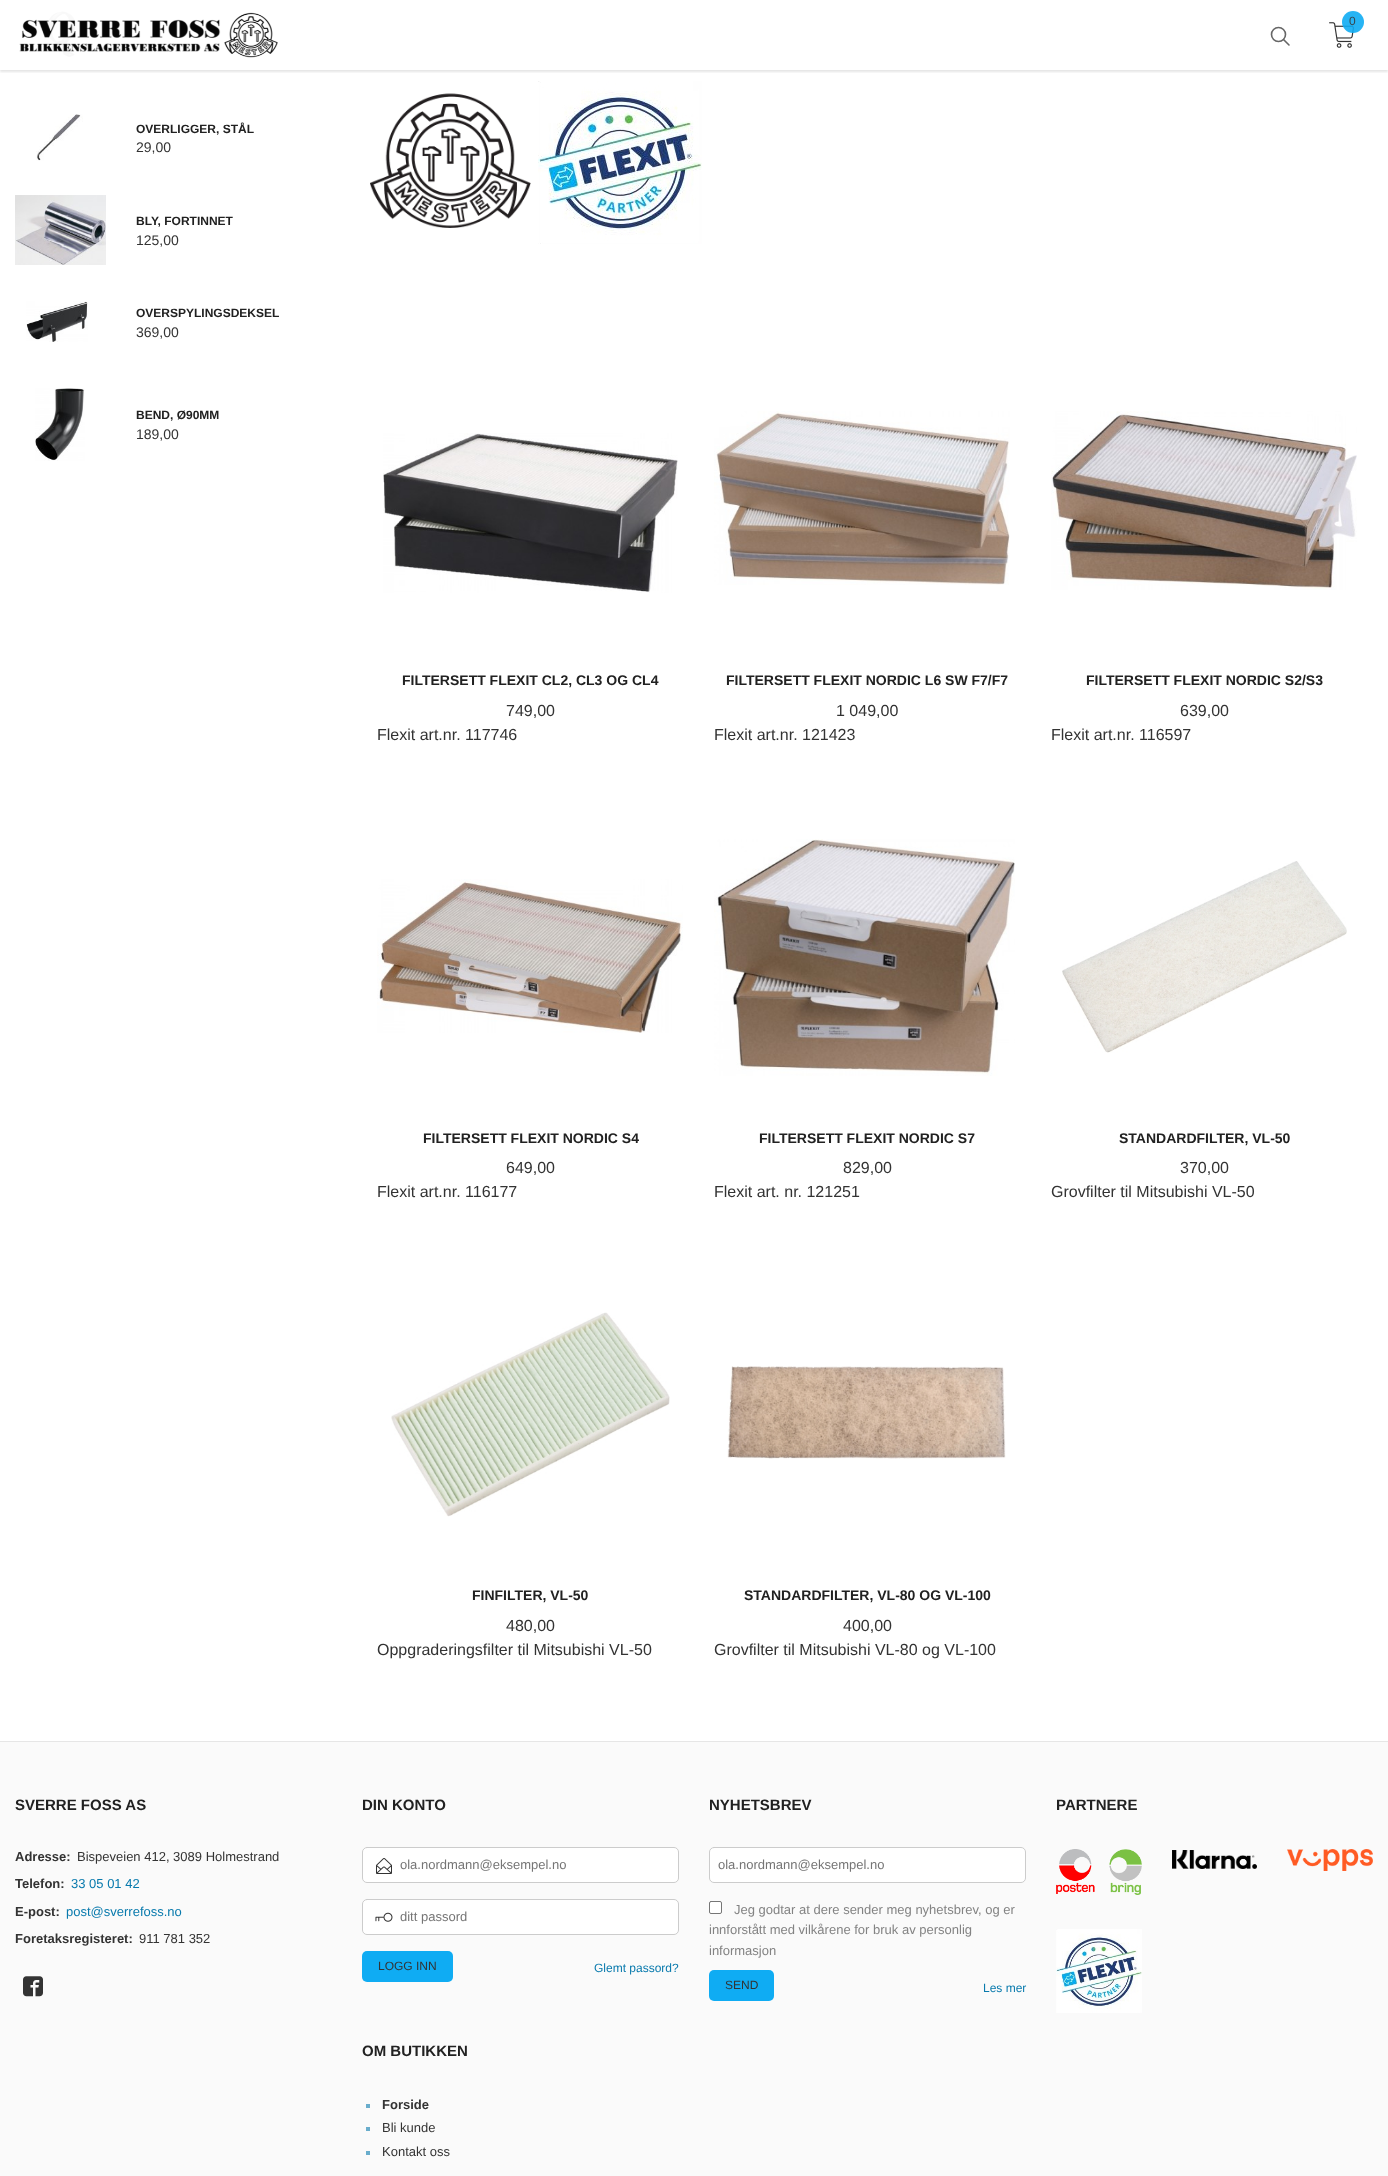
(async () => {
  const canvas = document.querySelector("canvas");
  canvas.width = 1388;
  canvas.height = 2176;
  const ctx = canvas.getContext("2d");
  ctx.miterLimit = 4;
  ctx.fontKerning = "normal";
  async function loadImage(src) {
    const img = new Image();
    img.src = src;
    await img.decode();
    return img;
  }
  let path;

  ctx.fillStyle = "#fafafa";
  ctx.fillRect(0, 0, 1388, 2176);
  ctx.fillStyle = "#ffffff";
  ctx.fillRect(0, 0, 1388, 1741);
  ctx.drawImage(await loadImage("img/3.png"), 39, 11, 38, 47);
  ctx.save();
  ctx.beginPath();
  ctx.rect(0, 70, 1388, 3);
  ctx.clip();
  ctx.fillStyle = "rgba(0, 0, 0, 0.1)";
  ctx.filter = "blur(1px)";
  ctx.beginPath();
  ctx.rect(0, 2, 1388, 70);
  ctx.fill();
  ctx.filter = "none";
  ctx.restore();
  ctx.drawImage(await loadImage("img/1.png"), 19, 12, 259, 46);
  ctx.beginPath();
  ctx.arc(1278.5, 34.5, 7, 0, Math.PI * 2);
  ctx.strokeStyle = "#666666";
  ctx.lineWidth = 1.6;
  ctx.stroke();
  path = new Path2D("M1289 45L1283.5 39.5");
  ctx.lineCap = "round";
  ctx.stroke(path);
  ctx.drawImage(await loadImage("img/2.png"), 1329, 22, 25, 26);
  ctx.fillStyle = "rgba(15, 172, 243, 0.9)";
  ctx.beginPath();
  ctx.arc(1353, 22, 11, 0, Math.PI * 2);
  ctx.fill();
  ctx.drawImage(await loadImage("img/4.png"), 36, 114, 47, 47);
  ctx.drawImage(await loadImage("img/5.png"), 15, 195, 91, 70);
  ctx.drawImage(await loadImage("img/6.png"), 26, 301, 62, 41);
  ctx.drawImage(await loadImage("img/7.png"), 35, 388, 50, 73);
  ctx.drawImage(await loadImage("img/8.png"), 370, 93, 161, 135);
  ctx.drawImage(await loadImage("img/9.png"), 538, 81, 164, 163);
  ctx.drawImage(await loadImage("img/10.png"), 383, 433, 295, 160);
  path = new Path2D("M538 504L535 501");
  ctx.strokeStyle = "#2f2f31";
  ctx.lineWidth = 0.9;
  ctx.stroke(path);
  ctx.drawImage(await loadImage("img/11.png"), 714, 411, 296, 174);
  ctx.drawImage(await loadImage("img/12.png"), 1051, 411, 306, 179);
  ctx.drawImage(await loadImage("img/13.png"), 377, 879, 306, 154);
  ctx.drawImage(await loadImage("img/14.png"), 714, 839, 301, 237);
  ctx.drawImage(await loadImage("img/15.png"), 1062, 861, 285, 192);
  ctx.drawImage(await loadImage("img/16.png"), 391, 1312, 279, 205);
  ctx.drawImage(await loadImage("img/17.png"), 727, 1366, 279, 93);
  ctx.fillStyle = "#e6e6e6";
  ctx.fillRect(0, 1741, 1388, 1);
  ctx.drawImage(await loadImage("img/18.png"), 23, 1976, 20, 21);
  ctx.fillStyle = "#ffffff";
  ctx.beginPath();
  ctx.roundRect(362.5, 1847.5, 316, 35, 4.5);
  ctx.fill();
  ctx.strokeStyle = "#cccccc";
  ctx.lineWidth = 1;
  ctx.stroke();
  ctx.drawImage(await loadImage("img/19.png"), 376, 1858, 16, 16);
  ctx.beginPath();
  ctx.roundRect(362.5, 1899.5, 316, 35, 4.5);
  ctx.fill();
  ctx.stroke();
  ctx.drawImage(await loadImage("img/20.png"), 375, 1912, 18, 10);
  ctx.fillStyle = "#0facf3";
  ctx.beginPath();
  ctx.roundRect(362, 1951, 91, 31, 5);
  ctx.fill();
  for (const [x, y, w, h, color] of [
    [366, 2104, 4, 4, "#69adcc"],
    [366, 2127, 4, 4, "#69adcc"],
    [366, 2151, 4, 4, "#69adcc"],
  ]) {
    ctx.fillStyle = color;
    ctx.fillRect(x, y, w, h);
  }
  ctx.fillStyle = "#ffffff";
  ctx.beginPath();
  ctx.roundRect(709.5, 1847.5, 316, 35, 4.5);
  ctx.fill();
  ctx.stroke();
  ctx.beginPath();
  ctx.roundRect(709.5, 1901.5, 12, 12, 1.5);
  ctx.fill();
  ctx.strokeStyle = "#767676";
  ctx.stroke();
  ctx.fillStyle = "#0facf3";
  ctx.beginPath();
  ctx.roundRect(709, 1970, 65, 31, 5);
  ctx.fill();
  ctx.drawImage(await loadImage("img/21.png"), 1056, 1849, 86, 46);
  ctx.drawImage(await loadImage("img/22.png"), 1172, 1850, 85, 19);
  ctx.drawImage(await loadImage("img/23.png"), 1287, 1849, 86, 22);
  ctx.drawImage(await loadImage("img/24.png"), 1056, 1929, 86, 84);
  ctx.font = "12px Liberation Sans";
  ctx.fillStyle = "#36444b";
  ctx.fillText("0", 1349, 25);
  ctx.font = "bold 12px Liberation Sans";
  ctx.fillStyle = "#212121";
  ctx.fillText("OVERLIGGER, STÅL", 136, 133);
  ctx.font = "14px Liberation Sans";
  ctx.fillStyle = "#333333";
  ctx.fillText("29,00", 136, 152);
  ctx.font = "bold 12px Liberation Sans";
  ctx.fillStyle = "#212121";
  ctx.fillText("BLY, FORTINNET", 136, 225);
  ctx.font = "14px Liberation Sans";
  ctx.fillStyle = "#333333";
  ctx.fillText("125,00", 136, 245);
  ctx.font = "bold 12px Liberation Sans";
  ctx.fillStyle = "#212121";
  ctx.fillText("OVERSPYLINGSDEKSEL", 136, 317);
  ctx.font = "14px Liberation Sans";
  ctx.fillStyle = "#333333";
  ctx.fillText("369,00", 136, 337);
  ctx.font = "bold 12px Liberation Sans";
  ctx.fillStyle = "#212121";
  ctx.fillText("BEND, Ø90MM", 136, 419);
  ctx.font = "14px Liberation Sans";
  ctx.fillStyle = "#333333";
  ctx.fillText("189,00", 136, 439);
  ctx.font = "bold 14px Liberation Sans";
  ctx.fillStyle = "#212121";
  ctx.fillText("FILTERSETT FLEXIT CL2, CL3 OG CL4", 402, 685);
  ctx.font = "16px Liberation Sans";
  ctx.fillStyle = "#333333";
  ctx.fillText("749,00", 506, 716);
  ctx.fillText("Flexit art.nr. 117746", 377, 740);
  ctx.font = "bold 14px Liberation Sans";
  ctx.fillStyle = "#212121";
  ctx.fillText("FILTERSETT FLEXIT NORDIC L6 SW F7/F7", 726, 685);
  ctx.font = "16px Liberation Sans";
  ctx.fillStyle = "#333333";
  ctx.fillText("1 049,00", 836, 716);
  ctx.fillText("Flexit art.nr. 121423", 714, 740);
  ctx.font = "bold 14px Liberation Sans";
  ctx.fillStyle = "#212121";
  ctx.fillText("FILTERSETT FLEXIT NORDIC S2/S3", 1086, 685);
  ctx.font = "16px Liberation Sans";
  ctx.fillStyle = "#333333";
  ctx.fillText("639,00", 1180, 716);
  ctx.fillText("Flexit art.nr. 116597", 1051, 740);
  ctx.font = "bold 14px Liberation Sans";
  ctx.fillStyle = "#212121";
  ctx.fillText("FILTERSETT FLEXIT NORDIC S4", 423, 1143);
  ctx.font = "16px Liberation Sans";
  ctx.fillStyle = "#333333";
  ctx.fillText("649,00", 506, 1173);
  ctx.fillText("Flexit art.nr. 116177", 377, 1197);
  ctx.font = "bold 14px Liberation Sans";
  ctx.fillStyle = "#212121";
  ctx.fillText("FILTERSETT FLEXIT NORDIC S7", 759, 1143);
  ctx.font = "16px Liberation Sans";
  ctx.fillStyle = "#333333";
  ctx.fillText("829,00", 843, 1173);
  ctx.fillText("Flexit art. nr. 121251", 714, 1197);
  ctx.font = "bold 14px Liberation Sans";
  ctx.fillStyle = "#212121";
  ctx.fillText("STANDARDFILTER, VL-50", 1119, 1143);
  ctx.font = "16px Liberation Sans";
  ctx.fillStyle = "#333333";
  ctx.fillText("370,00", 1180, 1173);
  ctx.fillText("Grovfilter til Mitsubishi VL-50", 1051, 1197);
  ctx.font = "bold 14px Liberation Sans";
  ctx.fillStyle = "#212121";
  ctx.fillText("FINFILTER, VL-50", 472, 1600);
  ctx.font = "16px Liberation Sans";
  ctx.fillStyle = "#333333";
  ctx.fillText("480,00", 506, 1631);
  ctx.fillText("Oppgraderingsfilter til Mitsubishi VL-50", 377, 1655);
  ctx.font = "bold 14px Liberation Sans";
  ctx.fillStyle = "#212121";
  ctx.fillText("STANDARDFILTER, VL-80 OG VL-100", 744, 1600);
  ctx.font = "16px Liberation Sans";
  ctx.fillStyle = "#333333";
  ctx.fillText("400,00", 843, 1631);
  ctx.fillText("Grovfilter til Mitsubishi VL-80 og VL-100", 714, 1655);
  ctx.font = "bold 15px Liberation Sans";
  ctx.fillStyle = "#212121";
  ctx.fillText("SVERRE FOSS AS", 15, 1810);
  ctx.font = "bold 13px Liberation Sans";
  ctx.fillStyle = "#333333";
  ctx.fillText("Adresse:", 15, 1861);
  ctx.font = "13px Liberation Sans";
  ctx.fillText("Bispeveien 412, 3089 Holmestrand", 77, 1861);
  ctx.font = "bold 13px Liberation Sans";
  ctx.fillText("Telefon:", 15, 1888);
  ctx.font = "13px Liberation Sans";
  ctx.fillStyle = "#097aad";
  ctx.fillText("33 05 01 42", 71, 1888);
  ctx.font = "bold 13px Liberation Sans";
  ctx.fillStyle = "#333333";
  ctx.fillText("E-post:", 15, 1916);
  ctx.font = "13px Liberation Sans";
  ctx.fillStyle = "#097aad";
  ctx.fillText("post@sverrefoss.no", 66, 1916);
  ctx.font = "bold 13px Liberation Sans";
  ctx.fillStyle = "#333333";
  ctx.fillText("Foretaksregisteret:", 15, 1943);
  ctx.font = "13px Liberation Sans";
  ctx.fillText("911 781 352", 139, 1943);
  ctx.font = "bold 15px Liberation Sans";
  ctx.fillStyle = "#212121";
  ctx.fillText("DIN KONTO", 362, 1810);
  ctx.font = "13px Liberation Sans";
  ctx.fillStyle = "#757575";
  ctx.fillText("ola.nordmann@eksempel.no", 400, 1869);
  ctx.fillText("ditt passord", 400, 1921);
  ctx.font = "12px Liberation Sans";
  ctx.fillStyle = "#333333";
  ctx.fillText("LOGG INN", 378, 1970);
  ctx.fillStyle = "#097aad";
  ctx.fillText("Glemt passord?", 594, 1972);
  ctx.font = "bold 15px Liberation Sans";
  ctx.fillStyle = "#212121";
  ctx.fillText("OM BUTIKKEN", 362, 2056);
  ctx.font = "bold 13px Liberation Sans";
  ctx.fillStyle = "#333333";
  ctx.fillText("Forside", 382, 2109);
  ctx.font = "13px Liberation Sans";
  ctx.fillText("Bli kunde", 382, 2132);
  ctx.fillText("Kontakt oss", 382, 2156);
  ctx.font = "bold 15px Liberation Sans";
  ctx.fillStyle = "#212121";
  ctx.fillText("NYHETSBREV", 709, 1810);
  ctx.font = "13px Liberation Sans";
  ctx.fillStyle = "#757575";
  ctx.fillText("ola.nordmann@eksempel.no", 718, 1869);
  ctx.fillStyle = "#838383";
  for (const [text, x, y] of [
    ["Jeg godtar at dere sender meg nyhetsbrev, og er", 734, 1914],
    ["innforstått med vilkårene for bruk av personlig", 709, 1934],
    ["informasjon", 709, 1955],
  ]) {
    ctx.fillText(text, x, y);
  }
  ctx.font = "12px Liberation Sans";
  ctx.fillStyle = "#333333";
  ctx.fillText("SEND", 725, 1989);
  ctx.fillStyle = "#097aad";
  ctx.fillText("Les mer", 983, 1992);
  ctx.font = "bold 15px Liberation Sans";
  ctx.fillStyle = "#212121";
  ctx.fillText("PARTNERE", 1056, 1810);
})();
